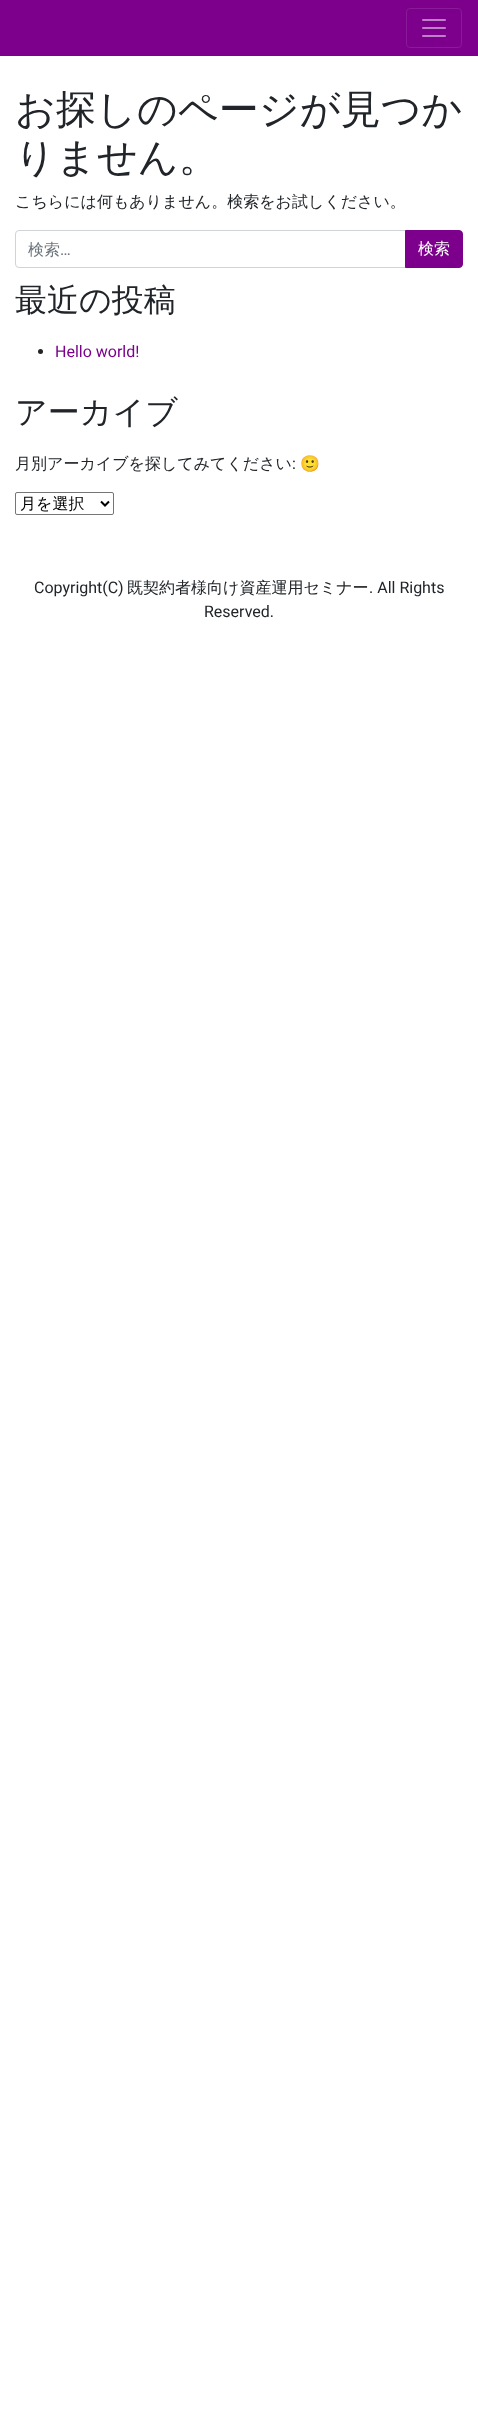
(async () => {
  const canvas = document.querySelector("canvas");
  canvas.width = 478;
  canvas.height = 2427;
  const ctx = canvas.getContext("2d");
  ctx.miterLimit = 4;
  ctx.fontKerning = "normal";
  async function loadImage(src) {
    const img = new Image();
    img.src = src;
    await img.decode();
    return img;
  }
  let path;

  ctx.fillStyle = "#ffffff";
  ctx.fillRect(0, 0, 478, 2427);
  ctx.fillStyle = "#7c008c";
  ctx.fillRect(0, 0, 478, 56);
  ctx.beginPath();
  ctx.roundRect(406.5, 8.5, 55, 39, 3.5);
  ctx.strokeStyle = "#891a98";
  ctx.stroke();
  ctx.drawImage(await loadImage("img/1.png"), 422, 19, 24, 18);
  ctx.beginPath();
  ctx.roundRect(15.5, 230.5, 390, 37, [3.5, 0, 0, 3.5]);
  ctx.strokeStyle = "#ced4da";
  ctx.stroke();
  ctx.beginPath();
  ctx.roundRect(405.5, 230.5, 57, 37, [0, 3.5, 3.5, 0]);
  ctx.fill();
  ctx.strokeStyle = "#7c008c";
  ctx.stroke();
  ctx.fillStyle = "#212529";
  ctx.beginPath();
  ctx.arc(40.5, 351.5, 2.5, 0, Math.PI * 2);
  ctx.fill();
  ctx.beginPath();
  ctx.roundRect(15.5, 492.5, 98, 22, 1.5);
  ctx.strokeStyle = "#767676";
  ctx.stroke();
  path = new Path2D("M101 501.5L105 505.5L109 501.5");
  ctx.strokeStyle = "#000000";
  ctx.lineWidth = 2;
  ctx.stroke(path);
  ctx.font = "500 40px WenQuanYi Zen Hei";
  ctx.fillText("お探しのページが見つか", 15, 123);
  ctx.fillText("りません。", 15, 171);
  ctx.font = "500 16px WenQuanYi Zen Hei";
  ctx.fillText("こちらには何もありません。検索をお試しください。", 15, 207);
  ctx.fillStyle = "#6c757d";
  ctx.fillText("検索", 28, 255);
  ctx.font = "16px Roboto";
  ctx.fillText("…", 60, 255);
  ctx.font = "500 16px WenQuanYi Zen Hei";
  ctx.fillStyle = "#ffffff";
  ctx.fillText("検索", 418, 254);
  ctx.font = "500 32px WenQuanYi Zen Hei";
  ctx.fillStyle = "#212529";
  ctx.fillText("最近の投稿", 15, 311);
  ctx.font = "16px Roboto";
  ctx.fillStyle = "#7c008c";
  ctx.fillText("Hello world!", 55, 357);
  ctx.font = "500 32px WenQuanYi Zen Hei";
  ctx.fillStyle = "#212529";
  ctx.fillText("アーカイブ", 15, 423);
  ctx.font = "500 16px WenQuanYi Zen Hei";
  ctx.fillText("月別アーカイブを探してみてください", 15, 469);
  ctx.font = "16px Roboto";
  ctx.fillText(":", 292, 469);
  ctx.font = "16px Noto Color Emoji";
  ctx.fillText("🙂", 300, 469);
  ctx.font = "500 16px WenQuanYi Zen Hei";
  ctx.fillStyle = "#000000";
  ctx.fillText("月を選択", 20, 509);
  ctx.font = "16px Roboto";
  ctx.fillStyle = "#212529";
  ctx.fillText("Copyright(C)", 34, 593);
  ctx.font = "500 16px WenQuanYi Zen Hei";
  ctx.fillText("既契約者様向け資産運用セミナー", 127, 593);
  ctx.font = "16px Roboto";
  ctx.fillText(". All Rights", 369, 593);
  ctx.fillText("Reserved.", 204, 617);
})();
